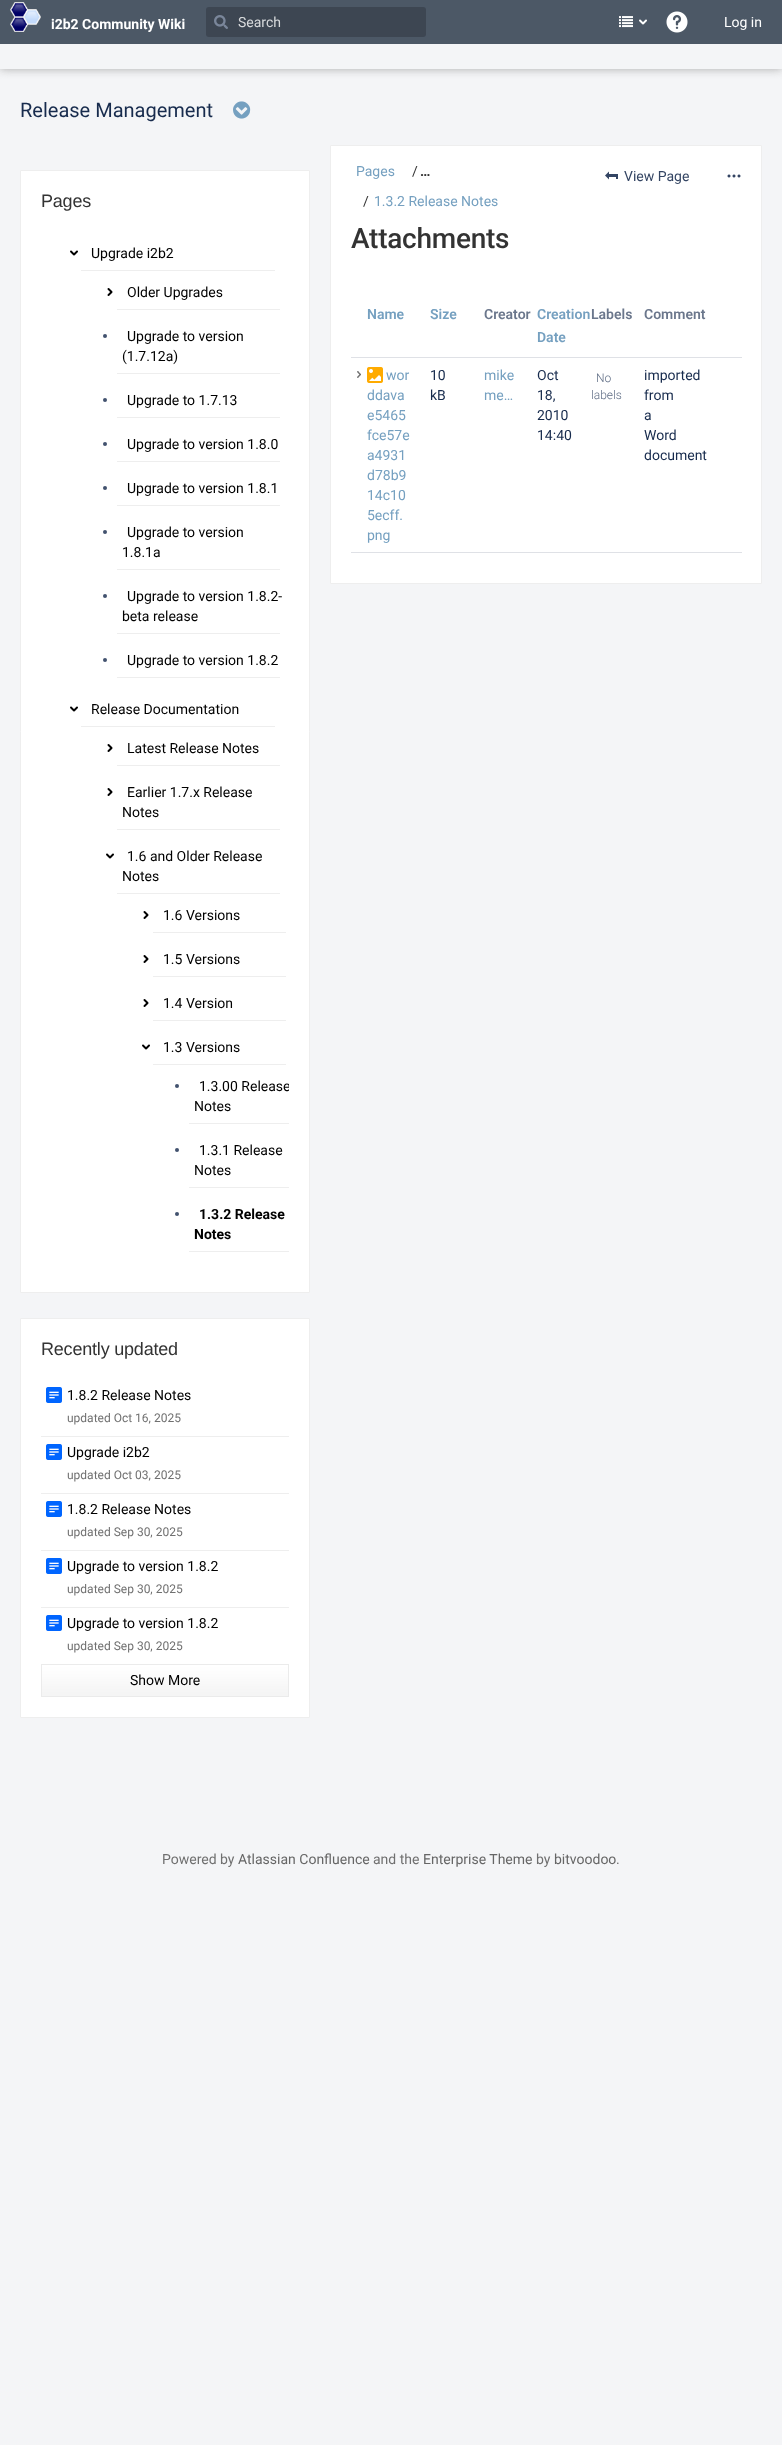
(async () => {
  const canvas = document.querySelector("canvas");
  canvas.width = 782;
  canvas.height = 2445;
  const ctx = canvas.getContext("2d");
  ctx.miterLimit = 4;
  ctx.fontKerning = "normal";
  async function loadImage(src) {
    const img = new Image();
    img.src = src;
    await img.decode();
    return img;
  }

  ctx.fillStyle = "#f4f5f7";
  ctx.fillRect(0, 0, 782, 2445);
  ctx.save();
  ctx.beginPath();
  ctx.rect(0, 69, 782, 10);
  ctx.clip();
  ctx.fillStyle = "#aaaaaa";
  ctx.filter = "blur(5px)";
  ctx.beginPath();
  ctx.rect(0, 0, 782, 69);
  ctx.fill();
  ctx.filter = "none";
  ctx.restore();
  ctx.fillStyle = "#4c5866";
  ctx.fillRect(0, 0, 782, 44);
  ctx.drawImage(await loadImage("img/1.png"), 10, 2, 31, 30);
  ctx.fillStyle = "#3d4652";
  ctx.beginPath();
  ctx.roundRect(206, 7, 220, 30, 3);
  ctx.fill();
  ctx.drawImage(await loadImage("img/2.png"), 214, 15, 14, 14);
  ctx.drawImage(await loadImage("img/3.png"), 619, 16, 14, 12);
  ctx.drawImage(await loadImage("img/4.png"), 639, 19, 8, 6);
  ctx.drawImage(await loadImage("img/5.png"), 666, 11, 22, 22);
  ctx.drawImage(await loadImage("img/6.png"), 233, 101, 18, 18);
  ctx.fillStyle = "#ffffff";
  ctx.beginPath();
  ctx.rect(20.5, 170.5, 289, 1122);
  ctx.fill();
  ctx.strokeStyle = "#eeeeee";
  ctx.stroke();
  ctx.drawImage(await loadImage("img/7.png"), 70, 250, 8, 6);
  ctx.fillStyle = "#eeeeee";
  ctx.fillRect(81, 270, 194, 1);
  ctx.drawImage(await loadImage("img/8.png"), 107, 288, 6, 8);
  ctx.fillRect(117, 309, 163, 1);
  ctx.fillStyle = "#42526e";
  ctx.beginPath();
  ctx.arc(105, 336, 2, 0, Math.PI * 2);
  ctx.fill();
  ctx.fillStyle = "#eeeeee";
  ctx.fillRect(117, 373, 163, 1);
  ctx.fillStyle = "#42526e";
  ctx.beginPath();
  ctx.arc(105, 400, 2, 0, Math.PI * 2);
  ctx.fill();
  ctx.fillStyle = "#eeeeee";
  ctx.fillRect(117, 417, 163, 1);
  ctx.fillStyle = "#42526e";
  ctx.beginPath();
  ctx.arc(105, 444, 2, 0, Math.PI * 2);
  ctx.fill();
  ctx.fillStyle = "#eeeeee";
  ctx.fillRect(117, 461, 163, 1);
  ctx.fillStyle = "#42526e";
  ctx.beginPath();
  ctx.arc(105, 488, 2, 0, Math.PI * 2);
  ctx.fill();
  ctx.fillStyle = "#eeeeee";
  ctx.fillRect(117, 505, 163, 1);
  ctx.fillStyle = "#42526e";
  ctx.beginPath();
  ctx.arc(105, 532, 2, 0, Math.PI * 2);
  ctx.fill();
  ctx.fillStyle = "#eeeeee";
  ctx.fillRect(117, 569, 163, 1);
  ctx.fillStyle = "#42526e";
  ctx.beginPath();
  ctx.arc(105, 596, 2, 0, Math.PI * 2);
  ctx.fill();
  ctx.fillStyle = "#eeeeee";
  ctx.fillRect(117, 633, 163, 1);
  ctx.fillStyle = "#42526e";
  ctx.beginPath();
  ctx.arc(105, 660, 2, 0, Math.PI * 2);
  ctx.fill();
  ctx.fillStyle = "#eeeeee";
  ctx.fillRect(117, 677, 163, 1);
  ctx.drawImage(await loadImage("img/7.png"), 70, 706, 8, 6);
  ctx.fillRect(81, 726, 194, 1);
  ctx.drawImage(await loadImage("img/8.png"), 107, 744, 6, 8);
  ctx.fillRect(117, 765, 163, 1);
  ctx.drawImage(await loadImage("img/8.png"), 107, 788, 6, 8);
  ctx.fillRect(117, 829, 163, 1);
  ctx.drawImage(await loadImage("img/7.png"), 106, 853, 8, 6);
  ctx.fillRect(117, 893, 163, 1);
  ctx.drawImage(await loadImage("img/8.png"), 143, 911, 6, 8);
  ctx.fillRect(153, 932, 133, 1);
  ctx.drawImage(await loadImage("img/8.png"), 143, 955, 6, 8);
  ctx.fillRect(153, 976, 133, 1);
  ctx.drawImage(await loadImage("img/8.png"), 143, 999, 6, 8);
  ctx.fillRect(153, 1020, 133, 1);
  ctx.drawImage(await loadImage("img/7.png"), 142, 1044, 8, 6);
  ctx.fillRect(153, 1064, 133, 1);
  ctx.fillStyle = "#42526e";
  ctx.beginPath();
  ctx.arc(177, 1086, 2, 0, Math.PI * 2);
  ctx.fill();
  ctx.fillStyle = "#eeeeee";
  ctx.fillRect(189, 1123, 100, 1);
  ctx.fillStyle = "#42526e";
  ctx.beginPath();
  ctx.arc(177, 1150, 2, 0, Math.PI * 2);
  ctx.fill();
  ctx.fillStyle = "#eeeeee";
  ctx.fillRect(189, 1187, 100, 1);
  ctx.fillStyle = "#42526e";
  ctx.beginPath();
  ctx.arc(177, 1214, 2, 0, Math.PI * 2);
  ctx.fill();
  ctx.fillStyle = "#eeeeee";
  ctx.fillRect(189, 1251, 100, 1);
  ctx.fillStyle = "#ffffff";
  ctx.beginPath();
  ctx.rect(20.5, 1318.5, 289, 399);
  ctx.fill();
  ctx.stroke();
  ctx.fillStyle = "#eeeeee";
  ctx.fillRect(41, 1436, 248, 1);
  ctx.drawImage(await loadImage("img/9.png"), 46, 1387, 16, 16);
  ctx.fillRect(41, 1493, 248, 1);
  ctx.drawImage(await loadImage("img/9.png"), 46, 1444, 16, 16);
  ctx.fillRect(41, 1550, 248, 1);
  ctx.drawImage(await loadImage("img/9.png"), 46, 1501, 16, 16);
  ctx.fillRect(41, 1607, 248, 1);
  ctx.drawImage(await loadImage("img/9.png"), 46, 1558, 16, 16);
  ctx.drawImage(await loadImage("img/9.png"), 46, 1615, 16, 16);
  ctx.drawImage(await loadImage("img/10.png"), 42, 1665, 246, 31);
  ctx.strokeStyle = "#ebebeb";
  ctx.strokeRect(41.5, 1664.5, 247, 32);
  ctx.fillStyle = "#ffffff";
  ctx.beginPath();
  ctx.rect(330.5, 145.5, 431, 438);
  ctx.fill();
  ctx.strokeStyle = "#eeeeee";
  ctx.stroke();
  ctx.drawImage(await loadImage("img/11.png"), 605, 171, 13, 9);
  ctx.drawImage(await loadImage("img/12.png"), 727, 174, 14, 4);
  ctx.fillStyle = "#dfe1e6";
  ctx.fillRect(351, 357, 391, 1);
  ctx.drawImage(await loadImage("img/13.png"), 357, 371, 4, 7);
  ctx.drawImage(await loadImage("img/14.png"), 367, 367, 16, 16);
  ctx.fillRect(351, 552, 391, 1);
  ctx.font = "bold 14px Roboto";
  ctx.fillStyle = "#ffffff";
  ctx.fillText("i2b2 Community Wiki", 51, 29);
  ctx.font = "14px Roboto";
  ctx.fillStyle = "#d8dadc";
  ctx.fillText("Search", 238, 27);
  ctx.fillStyle = "#ffffff";
  ctx.fillText("Log in", 724, 27);
  ctx.font = "20px Roboto";
  ctx.fillStyle = "#172b4d";
  ctx.fillText("Release Management", 20, 117);
  ctx.letterSpacing = "-0.2px";
  ctx.font = "18px Liberation Sans";
  ctx.fillStyle = "#333333";
  ctx.fillText("Pages", 41, 207);
  ctx.letterSpacing = "0px";
  ctx.font = "14px Roboto";
  ctx.fillStyle = "#000000";
  for (const [text, x, y] of [
    ["Upgrade i2b2", 91, 258],
    ["Older Upgrades", 127, 297],
    ["Upgrade to version", 127, 341],
    ["(1.7.12a)", 122, 361],
    ["Upgrade to 1.7.13", 127, 405],
    ["Upgrade to version 1.8.0", 127, 449],
    ["Upgrade to version 1.8.1", 127, 493],
    ["Upgrade to version", 127, 537],
    ["1.8.1a", 122, 557],
    ["Upgrade to version 1.8.2-", 127, 601],
    ["beta release", 122, 621],
    ["Upgrade to version 1.8.2", 127, 665],
    ["Release Documentation", 91, 714],
    ["Latest Release Notes", 127, 753],
    ["Earlier 1.7.x Release", 127, 797],
    ["Notes", 122, 817],
    ["1.6 and Older Release", 127, 861],
    ["Notes", 122, 881],
    ["1.6 Versions", 163, 920],
    ["1.5 Versions", 163, 964],
    ["1.4 Version", 163, 1008],
    ["1.3 Versions", 163, 1052],
  ]) {
    ctx.fillText(text, x, y);
  }
  ctx.save();
  ctx.beginPath();
  ctx.rect(169, 1071, 120, 58);
  ctx.clip();
  ctx.fillText("1.3.00 Release", 199, 1091);
  ctx.restore();
  for (const [text, x, y] of [
    ["Notes", 194, 1111],
    ["1.3.1 Release", 199, 1155],
    ["Notes", 194, 1175],
  ]) {
    ctx.fillText(text, x, y);
  }
  ctx.font = "bold 14px Roboto";
  ctx.fillText("1.3.2 Release", 199, 1219);
  ctx.fillText("Notes", 194, 1239);
  ctx.letterSpacing = "-0.2px";
  ctx.font = "18px Liberation Sans";
  ctx.fillStyle = "#333333";
  ctx.fillText("Recently updated", 41, 1355);
  ctx.letterSpacing = "0px";
  ctx.font = "14px Roboto";
  ctx.fillStyle = "#000000";
  ctx.fillText("1.8.2 Release Notes", 67, 1400);
  ctx.font = "12px Roboto";
  ctx.fillStyle = "#707070";
  ctx.fillText("updated Oct 16, 2025", 67, 1422);
  ctx.font = "14px Roboto";
  ctx.fillStyle = "#000000";
  ctx.fillText("Upgrade i2b2", 67, 1457);
  ctx.font = "12px Roboto";
  ctx.fillStyle = "#707070";
  ctx.fillText("updated Oct 03, 2025", 67, 1479);
  ctx.font = "14px Roboto";
  ctx.fillStyle = "#000000";
  ctx.fillText("1.8.2 Release Notes", 67, 1514);
  ctx.font = "12px Roboto";
  ctx.fillStyle = "#707070";
  ctx.fillText("updated Sep 30, 2025", 67, 1536);
  ctx.font = "14px Roboto";
  ctx.fillStyle = "#000000";
  ctx.fillText("Upgrade to version 1.8.2", 67, 1571);
  ctx.font = "12px Roboto";
  ctx.fillStyle = "#707070";
  ctx.fillText("updated Sep 30, 2025", 67, 1593);
  ctx.font = "14px Roboto";
  ctx.fillStyle = "#000000";
  ctx.fillText("Upgrade to version 1.8.2", 67, 1628);
  ctx.font = "12px Roboto";
  ctx.fillStyle = "#707070";
  ctx.fillText("updated Sep 30, 2025", 67, 1650);
  ctx.font = "14px Roboto";
  ctx.fillStyle = "#000000";
  ctx.fillText("Show More", 130, 1685);
  ctx.fillStyle = "#75a0c0";
  ctx.fillText("Pages", 356, 176);
  ctx.fillStyle = "#333333";
  ctx.fillText("/", 412, 176);
  ctx.font = "bold 14px Roboto";
  ctx.fillText("…", 420, 176);
  ctx.font = "14px Roboto";
  ctx.fillText("/", 363, 206);
  ctx.fillStyle = "#75a0c0";
  ctx.fillText("1.3.2 Release Notes", 374, 206);
  ctx.letterSpacing = "-0.25px";
  ctx.font = "500 28px Roboto";
  ctx.fillStyle = "#333333";
  ctx.fillText("Attachments", 351, 248);
  ctx.letterSpacing = "0px";
  ctx.font = "14px Roboto";
  ctx.fillStyle = "#344563";
  ctx.fillText("View Page", 624, 181);
  ctx.font = "600 14px Roboto";
  ctx.fillStyle = "#75a0c0";
  ctx.fillText("Name", 367, 319);
  ctx.fillText("Size", 430, 319);
  ctx.fillStyle = "#6b778c";
  ctx.fillText("Creator", 484, 319);
  ctx.fillStyle = "#75a0c0";
  ctx.fillText("Creation", 537, 319);
  ctx.fillText("Date", 537, 342);
  ctx.fillStyle = "#6b778c";
  ctx.fillText("Labels", 591, 319);
  ctx.fillText("Comment", 644, 319);
  ctx.font = "14px Roboto";
  ctx.fillStyle = "#75a0c0";
  for (const [text, x, y] of [
    ["wor", 386, 380],
    ["ddava", 367, 400],
    ["e5465", 367, 420],
    ["fce57e", 367, 440],
    ["a4931", 367, 460],
    ["d78b9", 367, 480],
    ["14c10", 367, 500],
    ["5ecff.", 367, 520],
    ["png", 367, 540],
  ]) {
    ctx.fillText(text, x, y);
  }
  ctx.fillStyle = "#172b4d";
  ctx.fillText("10", 430, 380);
  ctx.fillText("kB", 430, 400);
  ctx.fillStyle = "#75a0c0";
  ctx.fillText("mike", 484, 380);
  ctx.fillText("me…", 484, 400);
  ctx.fillStyle = "#172b4d";
  for (const [text, x, y] of [
    ["Oct", 537, 380],
    ["18,", 537, 400],
    ["2010", 537, 420],
    ["14:40", 537, 440],
  ]) {
    ctx.fillText(text, x, y);
  }
  ctx.font = "300 12px Roboto";
  ctx.fillStyle = "#5e6c84";
  ctx.fillText("No", 596, 382);
  ctx.fillText("labels", 591, 399);
  ctx.font = "14px Roboto";
  ctx.fillStyle = "#172b4d";
  for (const [text, x, y] of [
    ["imported", 644, 380],
    ["from", 644, 400],
    ["a", 644, 420],
    ["Word", 644, 440],
    ["document", 644, 460],
  ]) {
    ctx.fillText(text, x, y);
  }
  ctx.fillStyle = "#707070";
  ctx.fillText("Powered by", 162, 1864);
  ctx.fillStyle = "#666666";
  ctx.fillText("Atlassian Confluence", 238, 1864);
  ctx.fillStyle = "#707070";
  ctx.fillText("and the", 373, 1864);
  ctx.fillStyle = "#666666";
  ctx.fillText("Enterprise Theme", 423, 1864);
  ctx.fillStyle = "#707070";
  ctx.fillText("by", 536, 1864);
  ctx.fillStyle = "#666666";
  ctx.fillText("bitvoodoo", 554, 1864);
  ctx.fillStyle = "#707070";
  ctx.fillText(".", 616, 1864);
})();
